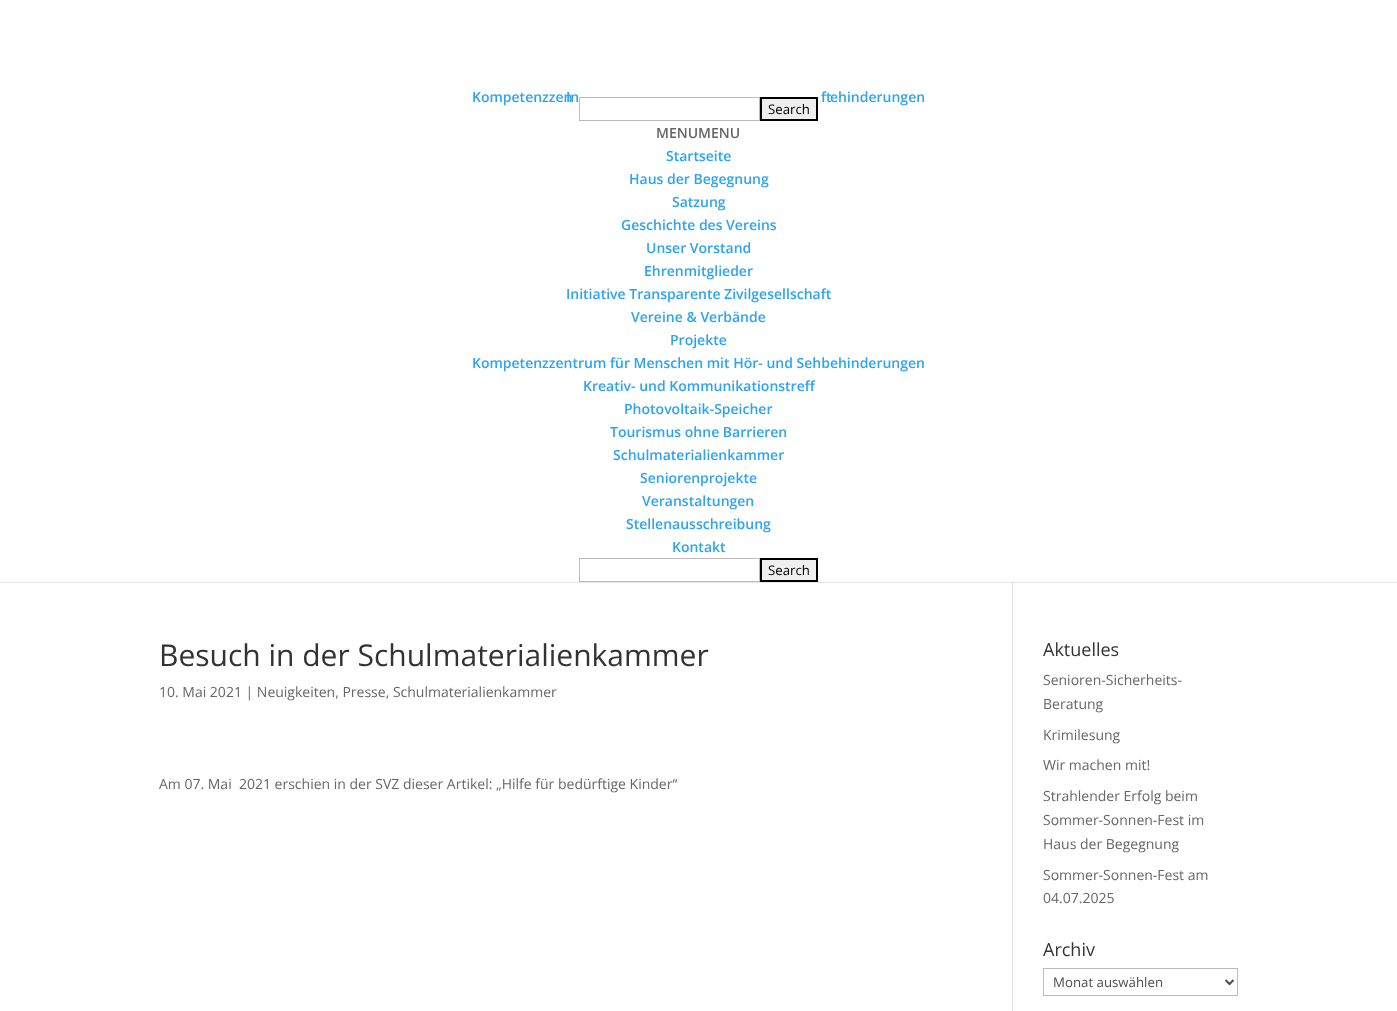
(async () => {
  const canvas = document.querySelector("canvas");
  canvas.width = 1397;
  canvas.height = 1011;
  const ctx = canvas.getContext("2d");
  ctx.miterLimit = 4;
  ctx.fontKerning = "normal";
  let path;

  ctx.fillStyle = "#ffffff";
  ctx.fillRect(0, 0, 1397, 1011);
  ctx.fillStyle = "#e6e6e6";
  ctx.fillRect(0, 582, 1397, 1);
  ctx.strokeStyle = "#bbbbbb";
  ctx.strokeRect(579.5, 97.5, 180, 23);
  ctx.fillStyle = "#efefef";
  ctx.beginPath();
  ctx.rect(761, 98, 56, 22);
  ctx.fill();
  ctx.strokeStyle = "#000000";
  ctx.lineWidth = 2;
  ctx.stroke();
  ctx.strokeStyle = "#bbbbbb";
  ctx.lineWidth = 1;
  ctx.strokeRect(579.5, 558.5, 180, 23);
  ctx.beginPath();
  ctx.rect(761, 559, 56, 22);
  ctx.fill();
  ctx.strokeStyle = "#000000";
  ctx.lineWidth = 2;
  ctx.stroke();
  ctx.fillStyle = "#e2e2e2";
  ctx.fillRect(1012, 582, 1, 429);
  ctx.fillStyle = "#cbcbcb";
  ctx.fillRect(1012, 582, 1, 1);
  ctx.strokeStyle = "#bbbbbb";
  ctx.lineWidth = 1;
  ctx.strokeRect(1043.5, 968.5, 194, 27);
  path = new Path2D("M1225.5 980L1229.5 984L1233.5 980");
  ctx.strokeStyle = "#4e4e4e";
  ctx.lineWidth = 2;
  ctx.stroke(path);
  ctx.font = "600 14px Open Sans";
  ctx.fillStyle = "#2ea3f2";
  for (const [text, x, y] of [
    ["In", 566, 102],
    ["Kompetenzzen", 472, 102],
    ["ft", 821, 102],
    ["ehinderungen", 830, 102],
  ]) {
    ctx.fillText(text, x, y);
  }
  ctx.font = "13.25px Open Sans";
  ctx.fillStyle = "#000000";
  ctx.fillText("Search", 768, 114);
  ctx.font = "600 14px Open Sans";
  ctx.fillStyle = "#666666";
  ctx.fillText("MENUMENU", 656, 138);
  ctx.fillStyle = "#2ea3f2";
  for (const [text, x, y] of [
    ["Startseite", 666, 161],
    ["Haus der Begegnung", 629, 184],
    ["Satzung", 672, 207],
    ["Geschichte des Vereins", 621, 230],
    ["Unser Vorstand", 646, 253],
    ["Ehrenmitglieder", 644, 276],
    ["Initiative Transparente Zivilgesellschaft", 566, 299],
    ["Vereine & Verbände", 631, 322],
    ["Projekte", 670, 345],
    ["Kompetenzzentrum für Menschen mit Hör- und Sehbehinderungen", 472, 368],
    ["Kreativ- und Kommunikationstreff", 583, 391],
    ["Photovoltaik-Speicher", 624, 414],
    ["Tourismus ohne Barrieren", 610, 437],
    ["Schulmaterialienkammer", 613, 460],
    ["Seniorenprojekte", 640, 483],
    ["Veranstaltungen", 642, 506],
    ["Stellenausschreibung", 626, 529],
    ["Kontakt", 672, 552],
  ]) {
    ctx.fillText(text, x, y);
  }
  ctx.font = "13.25px Open Sans";
  ctx.fillStyle = "#000000";
  ctx.fillText("Search", 768, 575);
  ctx.font = "30px Open Sans";
  ctx.fillStyle = "#333333";
  ctx.fillText("Besuch in der Schulmaterialienkammer", 159, 666);
  ctx.font = "14px Open Sans";
  ctx.fillStyle = "#666666";
  ctx.fillText("10. Mai 2021 | Neuigkeiten, Presse, Schulmaterialienkammer", 159, 697);
  ctx.fillText("Am 07. Mai  2021 erschien in der SVZ dieser Artikel: „Hilfe für bedürftige Kinder“", 159, 789);
  ctx.font = "18px Open Sans";
  ctx.fillStyle = "#333333";
  ctx.fillText("Aktuelles", 1043, 656);
  ctx.font = "14px Open Sans";
  ctx.fillStyle = "#666666";
  for (const [text, x, y] of [
    ["Senioren-Sicherheits-", 1043, 685],
    ["Beratung", 1043, 709],
    ["Krimilesung", 1043, 740],
    ["Wir machen mit!", 1043, 770],
    ["Strahlender Erfolg beim", 1043, 801],
    ["Sommer-Sonnen-Fest im", 1043, 825],
    ["Haus der Begegnung", 1043, 849],
    ["Sommer-Sonnen-Fest am", 1043, 880],
    ["04.07.2025", 1043, 903],
  ]) {
    ctx.fillText(text, x, y);
  }
  ctx.font = "18px Open Sans";
  ctx.fillStyle = "#333333";
  ctx.fillText("Archiv", 1043, 956);
  ctx.font = "13.25px Open Sans";
  ctx.fillStyle = "#4e4e4e";
  ctx.fillText("Monat auswählen", 1053, 987);
})();
